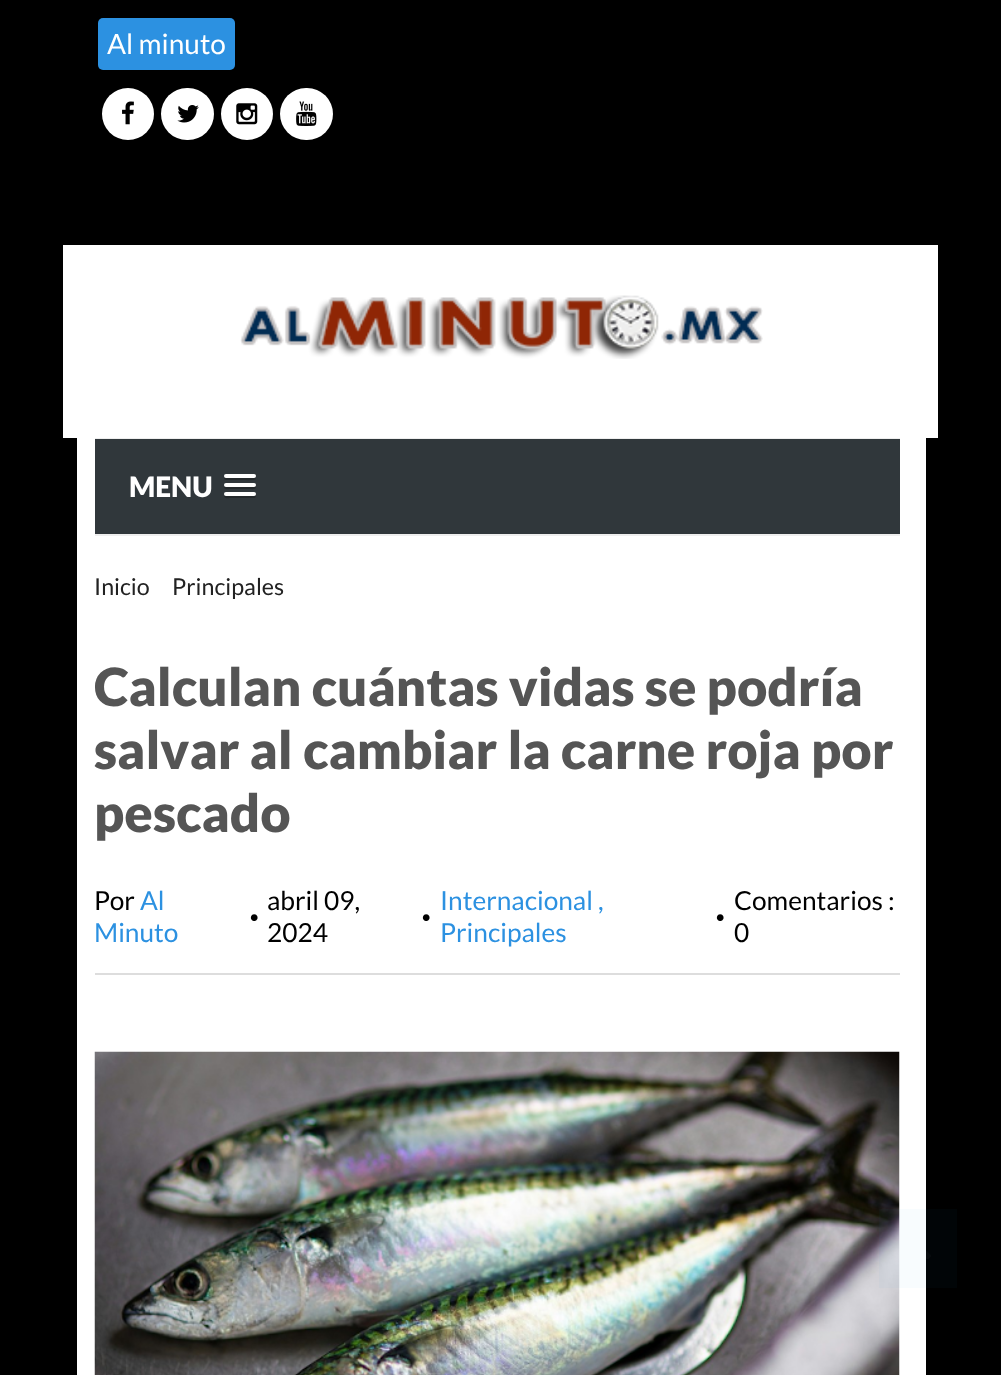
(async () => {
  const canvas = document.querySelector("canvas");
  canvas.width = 1001;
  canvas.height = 1375;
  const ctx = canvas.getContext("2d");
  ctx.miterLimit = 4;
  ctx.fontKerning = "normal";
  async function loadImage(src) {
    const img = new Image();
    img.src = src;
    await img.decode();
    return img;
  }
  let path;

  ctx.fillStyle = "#000000";
  ctx.fillRect(0, 0, 1001, 1375);
  ctx.fillStyle = "#2c91e1";
  ctx.beginPath();
  ctx.roundRect(98, 18, 137, 52, 5);
  ctx.fill();
  ctx.fillStyle = "#ffffff";
  ctx.beginPath();
  ctx.arc(128, 114, 26, 0, Math.PI * 2);
  ctx.fill();
  ctx.drawImage(await loadImage("img/1.png"), 122, 101, 12, 24);
  ctx.beginPath();
  ctx.roundRect(161, 88, 53, 52, 26);
  ctx.fill();
  ctx.drawImage(await loadImage("img/2.png"), 177, 105, 22, 18);
  ctx.beginPath();
  ctx.arc(247, 114, 26, 0, Math.PI * 2);
  ctx.fill();
  ctx.drawImage(await loadImage("img/3.png"), 236, 103, 22, 22);
  ctx.beginPath();
  ctx.roundRect(280, 88, 53, 52, 26);
  ctx.fill();
  ctx.drawImage(await loadImage("img/4.png"), 296, 101, 21, 25);
  ctx.fillRect(63, 245, 875, 193);
  ctx.drawImage(await loadImage("img/5.png"), 240, 295, 523, 64);
  for (const [x, y, w, h, color] of [
    [77, 438, 849, 937, "#ffffff"],
    [95, 438, 805, 1, "#eeeeee"],
    [95, 534, 805, 2, "#eeeeee"],
    [95, 439, 805, 95, "#30373b"],
  ]) {
    ctx.fillStyle = color;
    ctx.fillRect(x, y, w, h);
  }
  ctx.fillStyle = "#24292c";
  path = new Path2D("M224.5 477C222 481 230 480 230.5 480H240C242.5 480 254 480.5 255.5 479.5C256 478.5 256 477.5 255.5 476.5L254.5 477.5H225.5Z");
  ctx.fill(path);
  ctx.fillStyle = "#ffffff";
  ctx.beginPath();
  ctx.roundRect(224, 474, 32, 4, 2);
  ctx.fill();
  ctx.fillStyle = "#24292c";
  path = new Path2D("M224.5 486L224 487.5C224.5 490 229.5 489 230.5 489H249.5C251 489 256 490 256 487L255.5 485.5C255 486 254.5 486.5 254 486.5H225.5Z");
  ctx.fill(path);
  ctx.fillStyle = "#ffffff";
  ctx.beginPath();
  ctx.roundRect(224, 483, 32, 4, 2);
  ctx.fill();
  ctx.fillStyle = "#24292c";
  path = new Path2D("M224.5 494.5C224 495 224 496 224 496.5C224.5 499 229.5 498 230.5 498H254C256 498 256.5 495.5 255 494.5L254 495H225.5Z");
  ctx.fill(path);
  ctx.fillStyle = "#ffffff";
  ctx.beginPath();
  ctx.roundRect(224, 492, 32, 4, 2);
  ctx.fill();
  ctx.fillStyle = "#dddddd";
  ctx.fillRect(95, 973, 805, 2);
  ctx.drawImage(await loadImage("img/6.png"), 94, 1051, 806, 324);
  ctx.fillStyle = "rgba(44, 145, 225, 0.03)";
  ctx.fillRect(879, 1209, 78, 79);
  ctx.drawImage(await loadImage("img/7.png"), 926, 1251, 5, 8);
  ctx.font = "28px Lato";
  ctx.fillStyle = "#ffffff";
  ctx.fillText("Al minuto", 107, 54);
  ctx.font = "900 28px Lato";
  ctx.fillText("MENU", 129, 497);
  ctx.font = "23.25px Lato";
  ctx.fillStyle = "#222222";
  ctx.fillText("Inicio", 94, 595);
  ctx.fillText("Principales", 172, 595);
  ctx.save();
  ctx.beginPath();
  ctx.rect(95, 536, 805, 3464);
  ctx.clip();
  ctx.font = "900 52.5px Lato";
  ctx.fillStyle = "#555555";
  ctx.fillText("Calculan cuántas vidas se podría", 94, 706);
  ctx.restore();
  ctx.font = "900 52.5px Lato";
  ctx.fillStyle = "#555555";
  ctx.fillText("salvar al cambiar la carne roja por", 94, 769);
  ctx.fillText("pescado", 94, 832);
  ctx.font = "26.25px Lato";
  ctx.fillStyle = "#000000";
  ctx.fillText("Por", 94, 910);
  ctx.fillStyle = "#2c91e1";
  ctx.fillText("Al", 140, 910);
  ctx.fillStyle = "#000000";
  ctx.fillText("abril 09,", 267, 910);
  ctx.fillStyle = "#2c91e1";
  ctx.fillText("Internacional ,", 440, 910);
  ctx.fillStyle = "#000000";
  ctx.fillText("Comentarios :", 734, 910);
  ctx.font = "18px Lato";
  for (const [text, x, y] of [
    ["•", 249, 923],
    ["•", 421, 923],
    ["•", 715, 923],
  ]) {
    ctx.fillText(text, x, y);
  }
  ctx.font = "26.25px Lato";
  ctx.fillStyle = "#2c91e1";
  ctx.fillText("Minuto", 94, 942);
  ctx.fillStyle = "#000000";
  ctx.fillText("2024", 267, 942);
  ctx.fillStyle = "#2c91e1";
  ctx.fillText("Principales", 440, 942);
  ctx.fillStyle = "#000000";
  ctx.fillText("0", 734, 942);
})();
